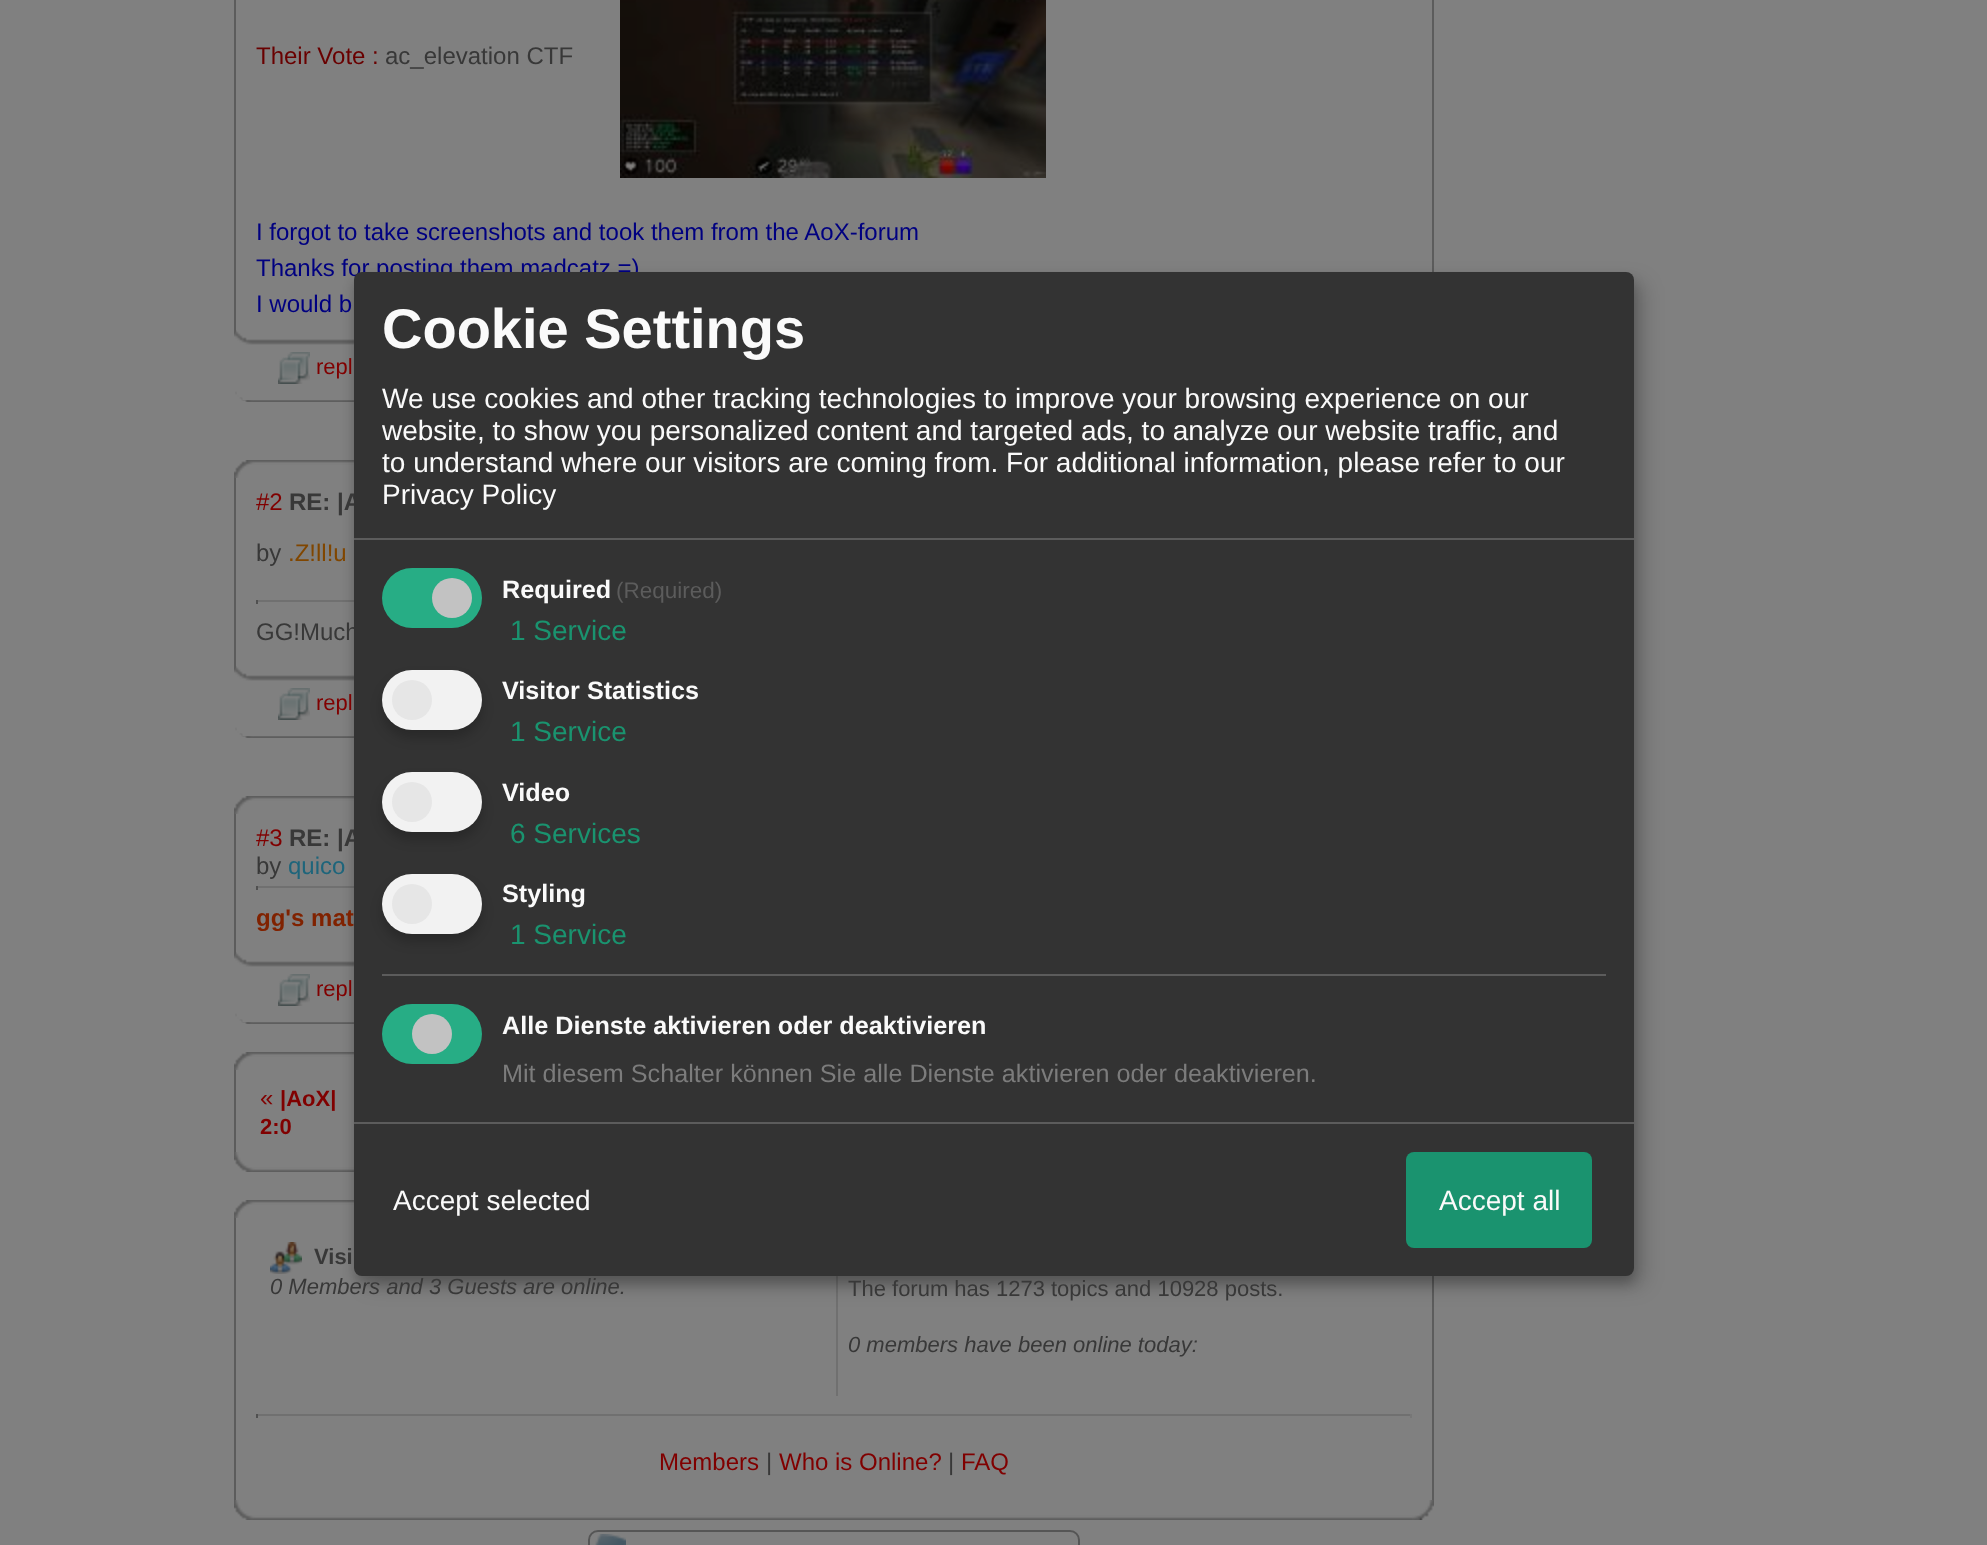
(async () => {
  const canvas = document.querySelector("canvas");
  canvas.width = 1987;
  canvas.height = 1545;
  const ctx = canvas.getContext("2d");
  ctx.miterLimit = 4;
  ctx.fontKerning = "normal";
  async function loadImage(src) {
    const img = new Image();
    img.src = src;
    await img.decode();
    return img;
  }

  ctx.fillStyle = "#808080";
  ctx.fillRect(0, 0, 1987, 1545);
  ctx.fillStyle = "#5c5c5c";
  ctx.fillRect(1432, 0, 2, 272);
  ctx.fillRect(234, 0, 2, 333);
  ctx.drawImage(await loadImage("img/1.png"), 620, 0, 426, 178);
  ctx.drawImage(await loadImage("img/4.png"), 235, 391, 119, 11);
  ctx.drawImage(await loadImage("img/2.png"), 234, 330, 120, 70);
  ctx.drawImage(await loadImage("img/3.png"), 278, 352, 32, 32);
  ctx.drawImage(await loadImage("img/5.png"), 234, 460, 120, 18);
  for (const [x, y, w, h, color] of [
    [234, 478, 2, 191, "#5c5c5c"],
    [256, 600, 98, 2, "#707070"],
    [256, 600, 2, 4, "#505050"],
  ]) {
    ctx.fillStyle = color;
    ctx.fillRect(x, y, w, h);
  }
  ctx.drawImage(await loadImage("img/4.png"), 235, 727, 119, 11);
  ctx.drawImage(await loadImage("img/2.png"), 234, 666, 120, 70);
  ctx.drawImage(await loadImage("img/3.png"), 278, 688, 32, 32);
  ctx.drawImage(await loadImage("img/5.png"), 234, 796, 120, 18);
  for (const [x, y, w, h, color] of [
    [234, 814, 2, 141, "#5c5c5c"],
    [256, 886, 98, 2, "#707070"],
    [256, 886, 2, 4, "#505050"],
  ]) {
    ctx.fillStyle = color;
    ctx.fillRect(x, y, w, h);
  }
  ctx.drawImage(await loadImage("img/4.png"), 235, 1013, 119, 11);
  ctx.drawImage(await loadImage("img/2.png"), 234, 952, 120, 70);
  ctx.drawImage(await loadImage("img/3.png"), 278, 974, 32, 32);
  ctx.drawImage(await loadImage("img/5.png"), 234, 1052, 120, 18);
  ctx.fillStyle = "#5c5c5c";
  ctx.fillRect(234, 1070, 2, 84);
  ctx.drawImage(await loadImage("img/6.png"), 234, 1152, 120, 20);
  ctx.drawImage(await loadImage("img/5.png"), 234, 1200, 120, 18);
  ctx.fillRect(1432, 1276, 2, 226);
  ctx.fillRect(234, 1218, 2, 284);
  ctx.drawImage(await loadImage("img/7.png"), 270, 1242, 32, 32);
  for (const [x, y, w, h, color] of [
    [836, 1276, 2, 120, "#707070"],
    [256, 1414, 1156, 2, "#707070"],
    [1410, 1414, 2, 4, "#777777"],
    [256, 1414, 2, 4, "#505050"],
  ]) {
    ctx.fillStyle = color;
    ctx.fillRect(x, y, w, h);
  }
  ctx.drawImage(await loadImage("img/8.png"), 234, 1500, 1178, 20);
  ctx.drawImage(await loadImage("img/9.png"), 1412, 1500, 22, 20);
  ctx.beginPath();
  ctx.roundRect(589, 1531, 490, 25, 9);
  ctx.strokeStyle = "#555555";
  ctx.lineWidth = 2;
  ctx.stroke();
  ctx.drawImage(await loadImage("img/10.png"), 595, 1534, 31, 11);
  ctx.fillStyle = "rgba(0, 0, 0, 0.19)";
  ctx.filter = "blur(10px)";
  ctx.beginPath();
  ctx.roundRect(364, 282, 1280, 1004, 8);
  ctx.fill();
  ctx.filter = "none";
  ctx.fillStyle = "rgba(0, 0, 0, 0.2)";
  ctx.filter = "blur(6px)";
  ctx.beginPath();
  ctx.roundRect(354, 280, 1280, 1004, 8);
  ctx.fill();
  ctx.filter = "none";
  ctx.font = "24px Liberation Sans";
  ctx.fillStyle = "#690000";
  ctx.fillText("Their Vote :", 256, 64);
  ctx.fillStyle = "#383838";
  ctx.fillText("ac_elevation CTF", 385, 64);
  ctx.fillStyle = "#000080";
  for (const [text, x, y] of [
    ["I forgot to take screenshots and took them from the AoX-forum", 256, 240],
    ["Thanks for posting them madcatz =)", 256, 276],
    ["I would b", 256, 312],
  ]) {
    ctx.fillText(text, x, y);
  }
  ctx.font = "22px Liberation Sans";
  ctx.fillStyle = "#800000";
  ctx.fillText("repl", 316, 374);
  ctx.font = "24px Liberation Sans";
  ctx.fillText("#2", 256, 510);
  ctx.font = "bold 24px Liberation Sans";
  ctx.fillStyle = "#383838";
  ctx.fillText("RE: |A", 289, 510);
  ctx.font = "24px Liberation Sans";
  ctx.fillText("by", 256, 561);
  ctx.fillStyle = "#804600";
  ctx.fillText(".Z!ll!u", 288, 561);
  ctx.fillStyle = "#383838";
  ctx.fillText("GG!Much", 256, 640);
  ctx.font = "22px Liberation Sans";
  ctx.fillStyle = "#800000";
  ctx.fillText("repl", 316, 710);
  ctx.font = "24px Liberation Sans";
  ctx.fillText("#3", 256, 846);
  ctx.font = "bold 24px Liberation Sans";
  ctx.fillStyle = "#383838";
  ctx.fillText("RE: |A", 289, 846);
  ctx.font = "24px Liberation Sans";
  ctx.fillText("by", 256, 874);
  ctx.fillStyle = "#1e657b";
  ctx.fillText("quico", 288, 874);
  ctx.font = "bold 24px Liberation Sans";
  ctx.fillStyle = "#802200";
  ctx.fillText("gg's mat", 256, 926);
  ctx.font = "22px Liberation Sans";
  ctx.fillStyle = "#800000";
  ctx.fillText("repl", 316, 996);
  ctx.font = "24px Liberation Sans";
  ctx.fillText("«", 260, 1106);
  ctx.font = "bold 22px Liberation Sans";
  ctx.fillText("|AoX|", 280, 1106);
  ctx.fillText("2:0", 260, 1134);
  ctx.fillStyle = "#383838";
  ctx.fillText("Visi", 314, 1264);
  ctx.font = "italic 22px Liberation Sans";
  ctx.fillText("0 Members and 3 Guests are online.", 270, 1294);
  ctx.font = "22px Liberation Sans";
  ctx.fillText("The forum has 1273 topics and 10928 posts.", 848, 1296);
  ctx.font = "italic 22px Liberation Sans";
  ctx.fillText("0 members have been online today:", 848, 1352);
  ctx.font = "24px Liberation Sans";
  ctx.fillStyle = "#800000";
  ctx.fillText("Members", 659, 1470);
  ctx.fillStyle = "#383838";
  ctx.fillText("|", 766, 1470);
  ctx.fillStyle = "#800000";
  ctx.fillText("Who is Online?", 779, 1470);
  ctx.fillStyle = "#383838";
  ctx.fillText("|", 948, 1470);
  ctx.fillStyle = "#800000";
  ctx.fillText("FAQ", 961, 1470);
  ctx.fillStyle = "#333333";
  ctx.beginPath();
  ctx.roundRect(354, 272, 1280, 1004, 8);
  ctx.fill();
  ctx.fillStyle = "#5c5c5c";
  ctx.fillRect(354, 538, 1280, 2);
  ctx.font = "bold 56px Liberation Sans";
  ctx.fillStyle = "#fafafa";
  ctx.fillText("Cookie Settings", 382, 348);
  ctx.font = "28px Liberation Sans";
  for (const [text, x, y] of [
    ["We use cookies and other tracking technologies to improve your browsing experience on our", 382, 408],
    ["website, to show you personalized content and targeted ads, to analyze our website traffic, and", 382, 440],
    ["to understand where our visitors are coming from. For additional information, please refer to our", 382, 472],
    ["Privacy Policy", 382, 504],
  ]) {
    ctx.fillText(text, x, y);
  }
  ctx.fillStyle = "#27ad85";
  ctx.beginPath();
  ctx.roundRect(382, 568, 100, 60, 30);
  ctx.fill();
  ctx.fillStyle = "#c2c2c2";
  ctx.beginPath();
  ctx.arc(452, 598, 20, 0, Math.PI * 2);
  ctx.fill();
  ctx.font = "bold 25.2px Liberation Sans";
  ctx.fillStyle = "#fafafa";
  ctx.fillText("Required", 502, 598);
  ctx.font = "22.5px Liberation Sans";
  ctx.fillStyle = "#5c5c5c";
  ctx.fillText("(Required)", 616, 598);
  ctx.font = "28px Liberation Sans";
  ctx.fillStyle = "#1a936f";
  ctx.fillText("1 Service", 510, 640);
  ctx.fillStyle = "rgba(0, 0, 0, 0.2)";
  ctx.filter = "blur(6px)";
  ctx.beginPath();
  ctx.roundRect(382, 678, 100, 60, 30);
  ctx.fill();
  ctx.filter = "none";
  ctx.fillStyle = "#f2f2f2";
  ctx.beginPath();
  ctx.roundRect(382, 670, 100, 60, 30);
  ctx.fill();
  ctx.fillStyle = "#e6e6e6";
  ctx.beginPath();
  ctx.arc(412, 700, 20, 0, Math.PI * 2);
  ctx.fill();
  ctx.font = "bold 25.2px Liberation Sans";
  ctx.fillStyle = "#fafafa";
  ctx.fillText("Visitor Statistics", 502, 699);
  ctx.font = "28px Liberation Sans";
  ctx.fillStyle = "#1a936f";
  ctx.fillText("1 Service", 510, 741);
  ctx.fillStyle = "rgba(0, 0, 0, 0.2)";
  ctx.filter = "blur(6px)";
  ctx.beginPath();
  ctx.roundRect(382, 780, 100, 60, 30);
  ctx.fill();
  ctx.filter = "none";
  ctx.fillStyle = "#f2f2f2";
  ctx.beginPath();
  ctx.roundRect(382, 772, 100, 60, 30);
  ctx.fill();
  ctx.fillStyle = "#e6e6e6";
  ctx.beginPath();
  ctx.arc(412, 802, 20, 0, Math.PI * 2);
  ctx.fill();
  ctx.font = "bold 25.2px Liberation Sans";
  ctx.fillStyle = "#fafafa";
  ctx.fillText("Video", 502, 801);
  ctx.font = "28px Liberation Sans";
  ctx.fillStyle = "#1a936f";
  ctx.fillText("6 Services", 510, 843);
  ctx.fillStyle = "rgba(0, 0, 0, 0.2)";
  ctx.filter = "blur(6px)";
  ctx.beginPath();
  ctx.roundRect(382, 882, 100, 60, 30);
  ctx.fill();
  ctx.filter = "none";
  ctx.fillStyle = "#f2f2f2";
  ctx.beginPath();
  ctx.roundRect(382, 874, 100, 60, 30);
  ctx.fill();
  ctx.fillStyle = "#e6e6e6";
  ctx.beginPath();
  ctx.arc(412, 904, 20, 0, Math.PI * 2);
  ctx.fill();
  ctx.font = "bold 25.2px Liberation Sans";
  ctx.fillStyle = "#fafafa";
  ctx.fillText("Styling", 502, 902);
  ctx.font = "28px Liberation Sans";
  ctx.fillStyle = "#1a936f";
  ctx.fillText("1 Service", 510, 944);
  ctx.fillStyle = "#5c5c5c";
  ctx.fillRect(382, 974, 1224, 2);
  ctx.fillStyle = "#27ad85";
  ctx.beginPath();
  ctx.roundRect(382, 1004, 100, 60, 30);
  ctx.fill();
  ctx.fillStyle = "#c2c2c2";
  ctx.beginPath();
  ctx.arc(432, 1034, 20, 0, Math.PI * 2);
  ctx.fill();
  ctx.font = "bold 25.2px Liberation Sans";
  ctx.fillStyle = "#fafafa";
  ctx.fillText("Alle Dienste aktivieren oder deaktivieren", 502, 1034);
  ctx.font = "25.2px Liberation Sans";
  ctx.fillStyle = "#7c7c7c";
  ctx.fillText("Mit diesem Schalter können Sie alle Dienste aktivieren oder deaktivieren.", 502, 1082);
  ctx.fillStyle = "#5c5c5c";
  ctx.fillRect(354, 1122, 1280, 2);
  ctx.font = "28px Liberation Sans";
  ctx.fillStyle = "#fafafa";
  ctx.fillText("Accept selected", 393, 1210);
  ctx.fillStyle = "#1a936f";
  ctx.beginPath();
  ctx.roundRect(1406, 1152, 186, 96, 8);
  ctx.fill();
  ctx.fillStyle = "#fafafa";
  ctx.fillText("Accept all", 1439, 1210);
})();
